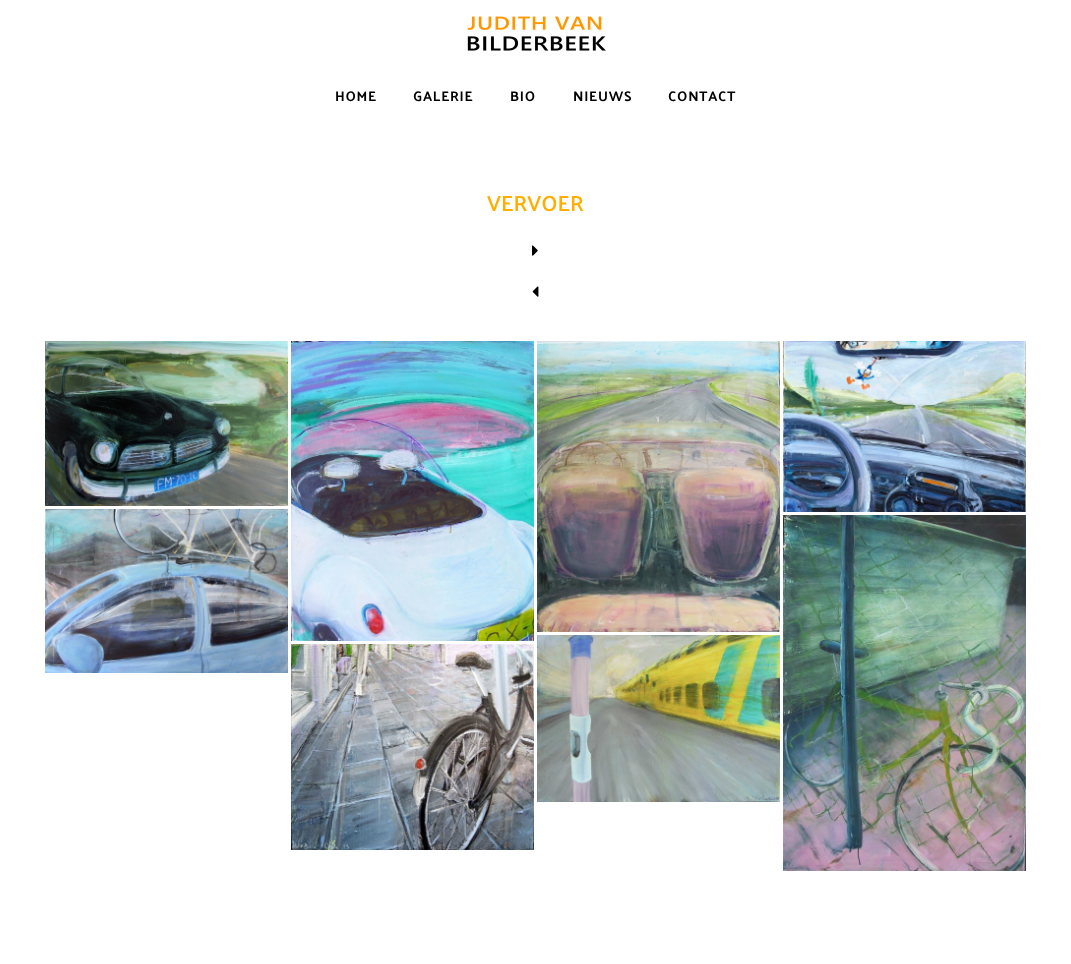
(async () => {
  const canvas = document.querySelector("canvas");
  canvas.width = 1071;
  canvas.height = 964;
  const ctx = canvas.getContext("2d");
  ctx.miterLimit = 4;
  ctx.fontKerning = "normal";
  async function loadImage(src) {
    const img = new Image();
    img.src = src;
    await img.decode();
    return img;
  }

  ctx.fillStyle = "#ffffff";
  ctx.fillRect(0, 0, 1071, 964);
  ctx.drawImage(await loadImage("img/1.png"), 467, 16, 139, 35);
  ctx.drawImage(await loadImage("img/2.png"), 532, 245, 6, 11);
  ctx.drawImage(await loadImage("img/3.png"), 532, 286, 7, 11);
  ctx.drawImage(await loadImage("img/4.png"), 45, 341, 243, 165);
  ctx.drawImage(await loadImage("img/5.png"), 291, 341, 243, 300);
  ctx.drawImage(await loadImage("img/6.png"), 537, 341, 243, 291);
  ctx.drawImage(await loadImage("img/7.png"), 783, 341, 243, 171);
  ctx.drawImage(await loadImage("img/8.png"), 45, 509, 243, 164);
  ctx.drawImage(await loadImage("img/9.png"), 291, 644, 243, 206);
  ctx.drawImage(await loadImage("img/10.png"), 537, 635, 243, 167);
  ctx.drawImage(await loadImage("img/11.png"), 783, 515, 243, 356);
  ctx.letterSpacing = "0.75px";
  ctx.font = "14px Palanquin Dark";
  ctx.fillStyle = "#000000";
  for (const [text, x, y] of [
    ["HOME", 335, 101],
    ["GALERIE", 413, 101],
    ["BIO", 510, 101],
    ["NIEUWS", 573, 101],
    ["CONTACT", 668, 101],
  ]) {
    ctx.fillText(text, x, y);
  }
  ctx.letterSpacing = "0px";
  ctx.font = "600 22px Palanquin";
  ctx.fillStyle = "#ffae00";
  ctx.fillText("VERVOER", 487, 211);
})();
